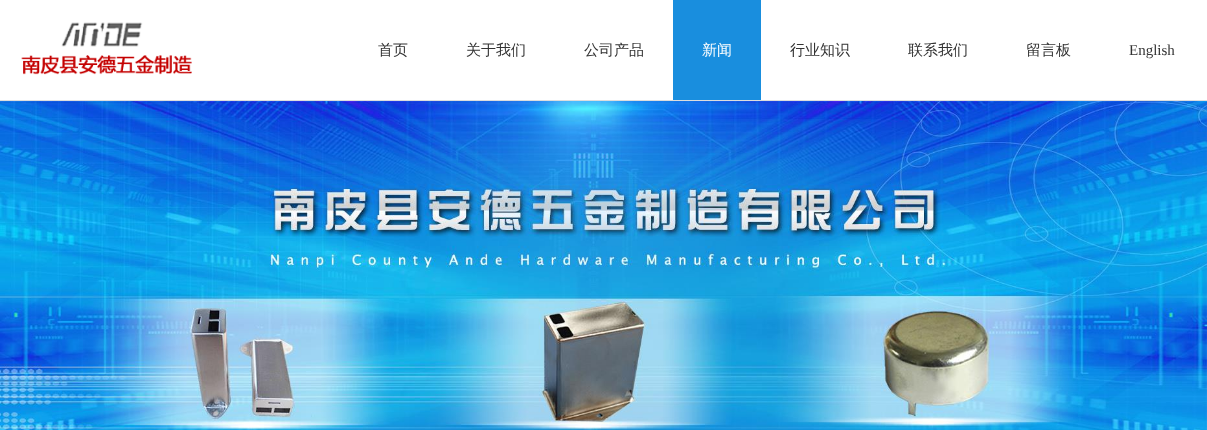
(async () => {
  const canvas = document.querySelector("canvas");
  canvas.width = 1207;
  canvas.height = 430;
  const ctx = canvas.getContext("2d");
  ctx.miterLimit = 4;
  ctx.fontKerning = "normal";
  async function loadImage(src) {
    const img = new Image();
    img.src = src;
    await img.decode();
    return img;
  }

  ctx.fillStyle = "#ffffff";
  ctx.fillRect(0, 0, 1207, 430);
  ctx.fillStyle = "#dddddd";
  ctx.fillRect(0, 100, 1207, 1);
  ctx.drawImage(await loadImage("img/1.png"), 21, 22, 171, 53);
  ctx.fillStyle = "#198ede";
  ctx.fillRect(673, 0, 88, 100);
  ctx.drawImage(await loadImage("img/2.png"), 0, 101, 1207, 329);
  ctx.font = "500 15px WenQuanYi Zen Hei";
  ctx.fillStyle = "#333333";
  for (const [text, x, y] of [
    ["首页", 378, 55],
    ["关于我们", 466, 55],
    ["公司产品", 584, 55],
  ]) {
    ctx.fillText(text, x, y);
  }
  ctx.fillStyle = "#ffffff";
  ctx.fillText("新闻", 702, 55);
  ctx.fillStyle = "#333333";
  for (const [text, x, y] of [
    ["行业知识", 790, 55],
    ["联系我们", 908, 55],
    ["留言板", 1026, 55],
  ]) {
    ctx.fillText(text, x, y);
  }
  ctx.font = "15px Liberation Serif";
  ctx.fillText("English", 1129, 55);
})();
